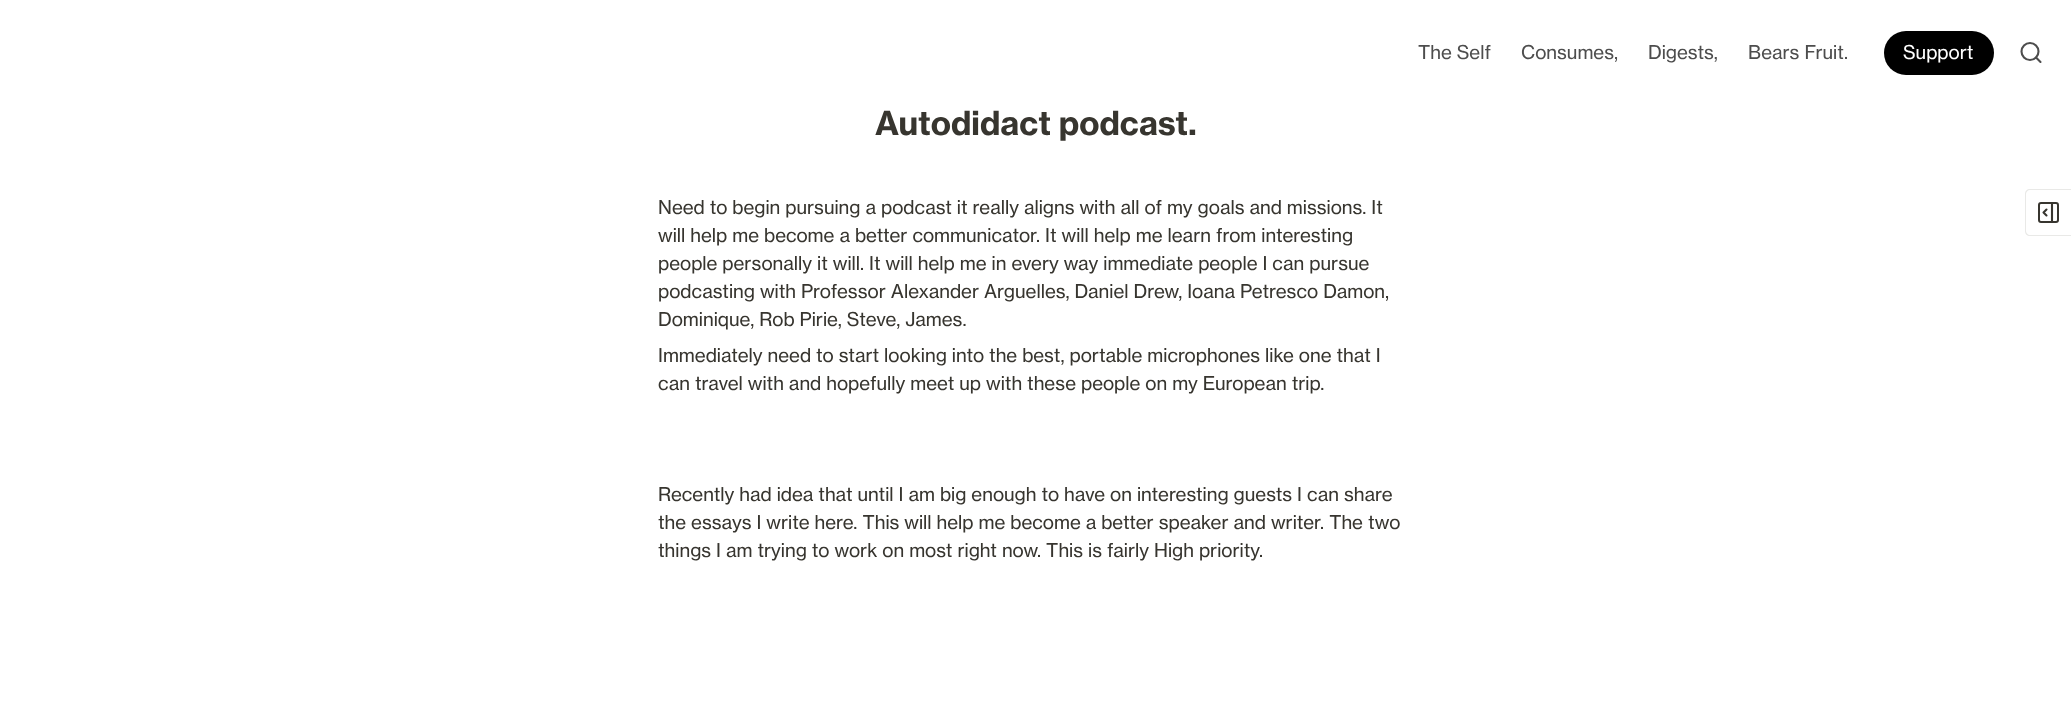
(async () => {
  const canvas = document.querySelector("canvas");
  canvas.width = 2071;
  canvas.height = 702;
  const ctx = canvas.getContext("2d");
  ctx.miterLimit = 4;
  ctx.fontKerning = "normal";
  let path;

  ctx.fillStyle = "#ffffff";
  ctx.fillRect(0, 0, 2071, 702);
  ctx.fillStyle = "#000000";
  ctx.beginPath();
  ctx.roundRect(1884, 31, 110, 44, 22);
  ctx.fill();
  ctx.beginPath();
  ctx.arc(2030, 51.5, 8.5, 0, Math.PI * 2);
  ctx.strokeStyle = "#4d4d4d";
  ctx.lineWidth = 2.1;
  ctx.stroke();
  path = new Path2D("M2040.5 62L2036 57.5");
  ctx.lineCap = "round";
  ctx.lineJoin = "round";
  ctx.stroke(path);
  ctx.fillStyle = "#e9e9e7";
  path = new Path2D("M2030 189H2071V236H2030C2027 236 2025 234 2025 231V194C2025 191 2027 189 2030 189ZM2030 190H2071V235H2030C2028 235 2026 233 2026 231V194C2026 192 2028 190 2030 190Z");
  ctx.fill(path, "evenodd");
  ctx.beginPath();
  ctx.roundRect(2039, 203, 19, 19, 2);
  ctx.strokeStyle = "#37352f";
  ctx.lineWidth = 2;
  ctx.lineJoin = "miter";
  ctx.stroke();
  path = new Path2D("M2052 203V222M2046.5 215.5L2043.5 212.5L2046.5 209.5");
  ctx.lineWidth = 2.1;
  ctx.lineJoin = "round";
  ctx.stroke(path);
  ctx.font = "18.75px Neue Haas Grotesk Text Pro";
  ctx.fillStyle = "#4d4d4d";
  for (const [text, x, y] of [
    ["The Self", 1418, 59],
    ["Consumes,", 1521, 59],
    ["Digests,", 1648, 59],
    ["Bears Fruit.", 1748, 59],
  ]) {
    ctx.fillText(text, x, y);
  }
  ctx.fillStyle = "#ffffff";
  ctx.fillText("Support", 1903, 59);
  ctx.font = "bold 32.75px Neue Haas Grotesk Text Pro";
  ctx.fillStyle = "#37352f";
  ctx.fillText("Autodidact podcast.", 875, 135);
  ctx.font = "18.75px Neue Haas Grotesk Text Pro";
  for (const [text, x, y] of [
    ["Need to begin pursuing a podcast it really aligns with all of my goals and missions. It", 658, 214],
    ["will help me become a better communicator. It will help me learn from interesting", 658, 242],
    ["people personally it will. It will help me in every way immediate people I can pursue", 658, 270],
    ["podcasting with Professor Alexander Arguelles, Daniel Drew, Ioana Petresco Damon,", 658, 298],
    ["Dominique, Rob Pirie, Steve, James.", 658, 326],
    ["Immediately need to start looking into the best, portable microphones like one that I", 658, 362],
    ["can travel with and hopefully meet up with these people on my European trip.", 658, 390],
    ["Recently had idea that until I am big enough to have on interesting guests I can share", 658, 501],
    ["the essays I write here. This will help me become a better speaker and writer. The two", 658, 529],
    ["things I am trying to work on most right now. This is fairly High priority.", 658, 557],
  ]) {
    ctx.fillText(text, x, y);
  }
})();
